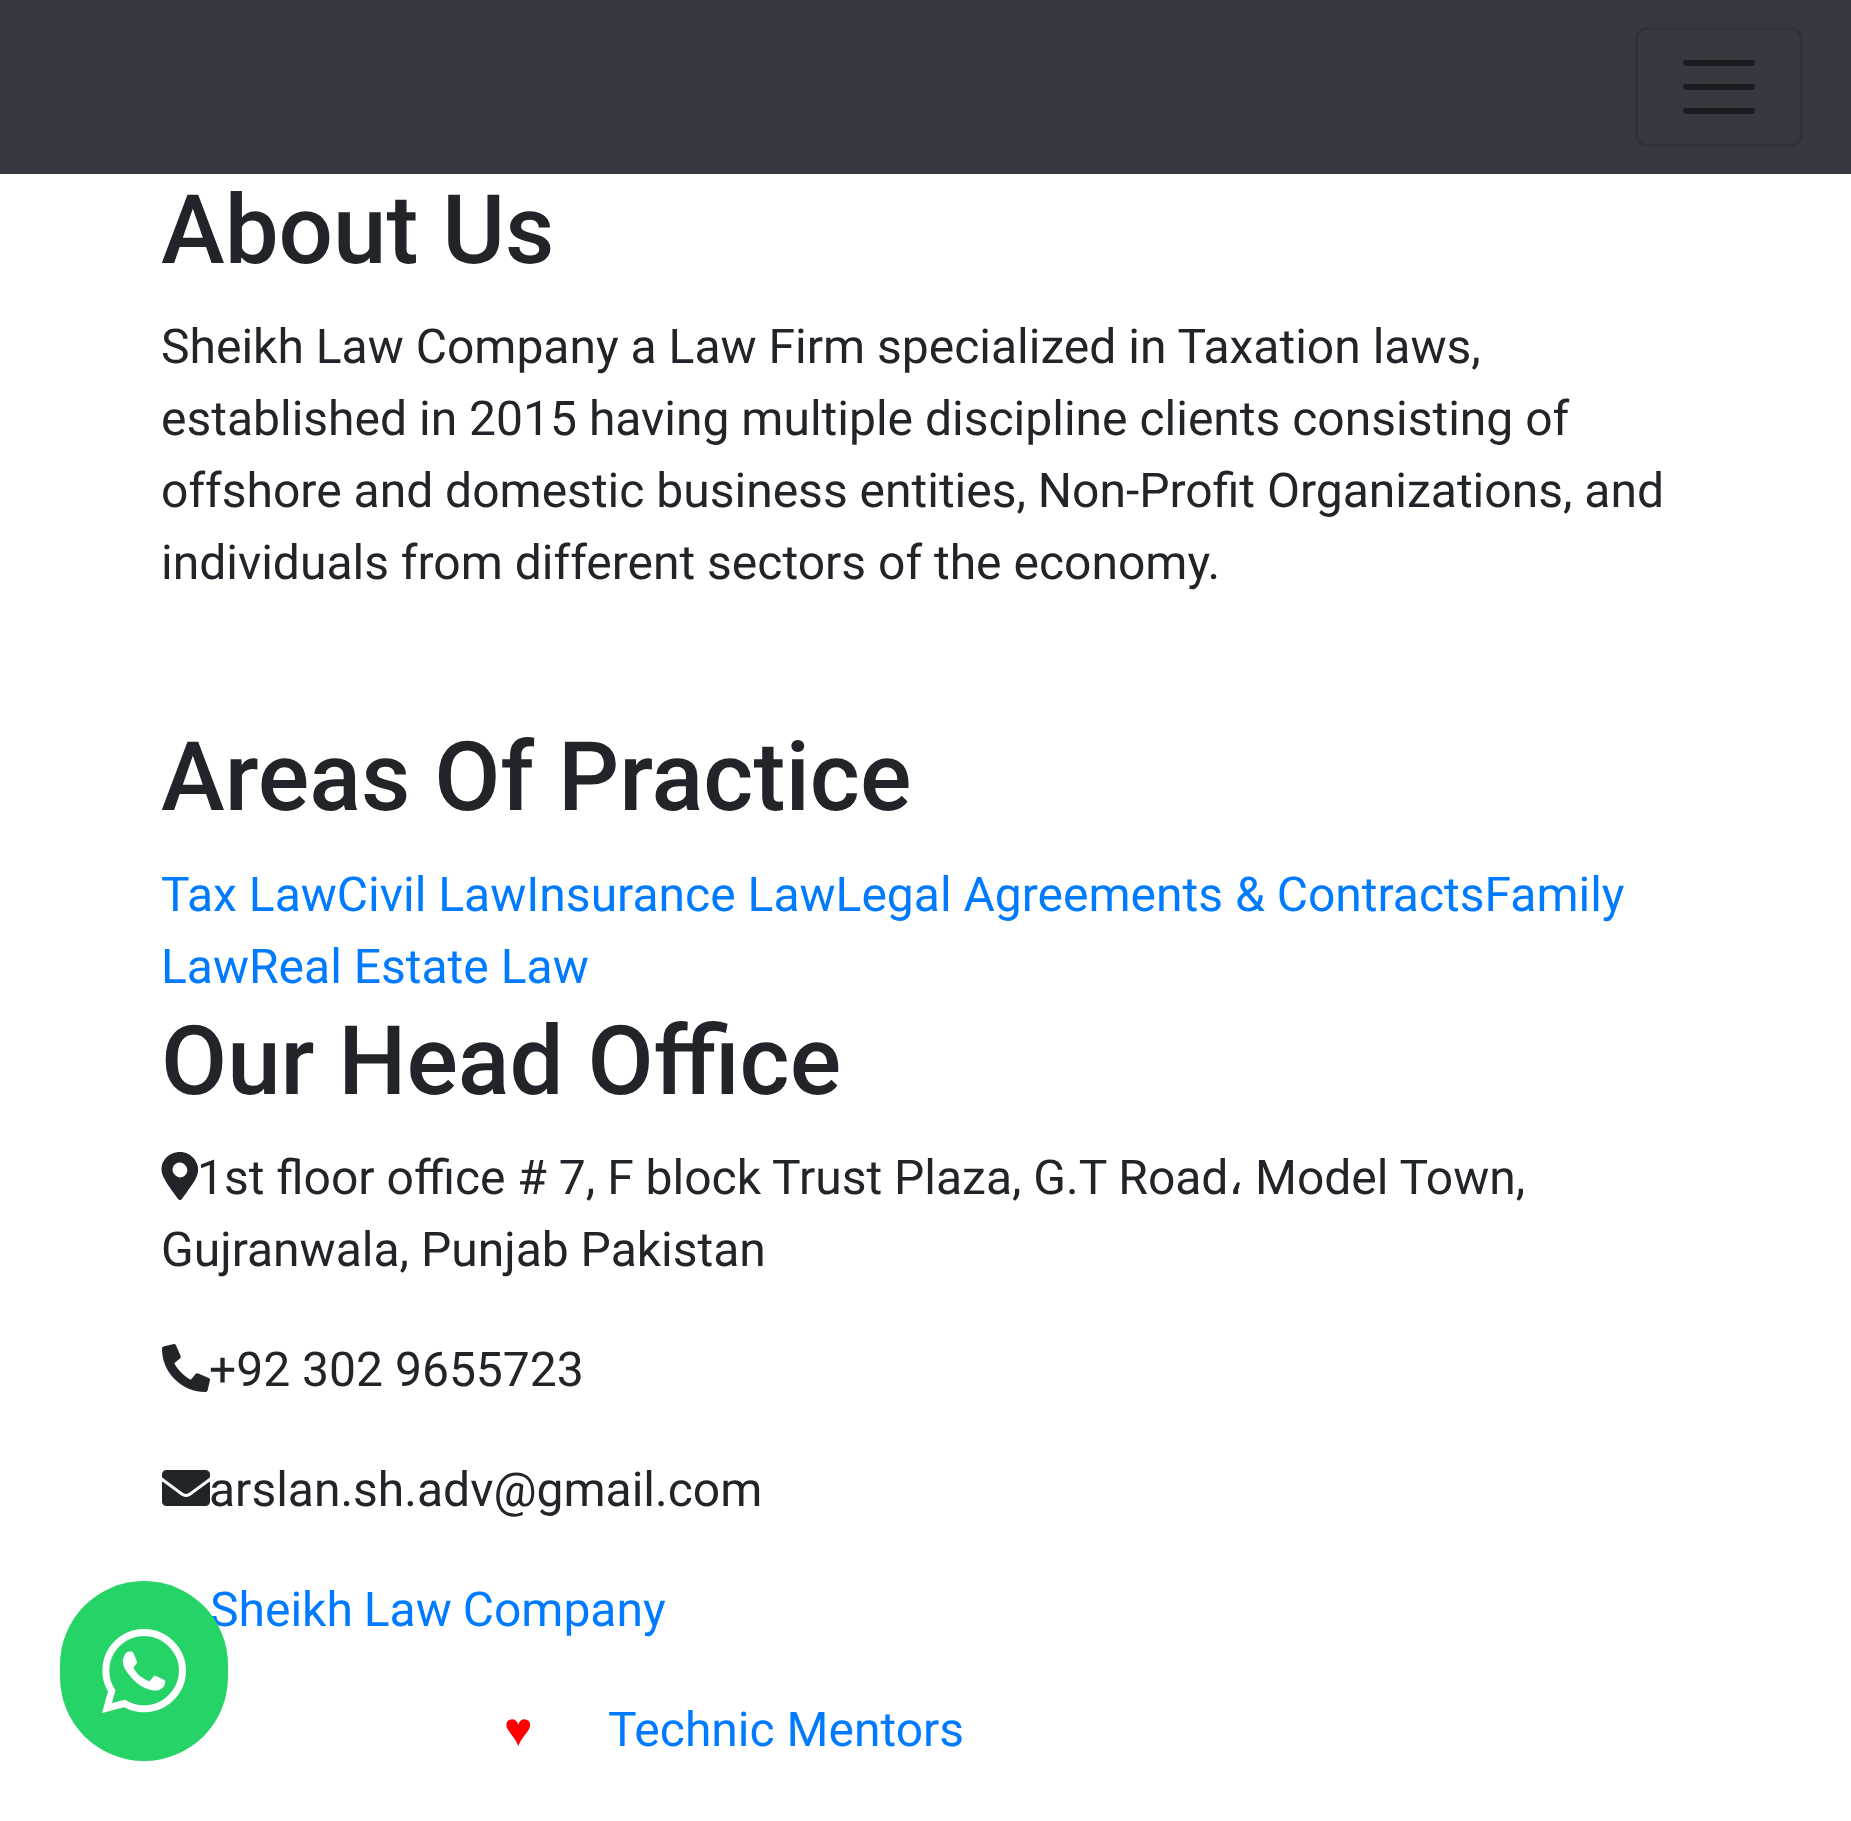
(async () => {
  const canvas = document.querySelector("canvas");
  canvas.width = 1851;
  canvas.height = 1821;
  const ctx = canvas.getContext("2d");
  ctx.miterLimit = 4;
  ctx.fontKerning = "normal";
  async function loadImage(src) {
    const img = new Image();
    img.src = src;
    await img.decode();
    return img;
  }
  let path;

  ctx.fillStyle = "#ffffff";
  ctx.fillRect(0, 0, 1851, 1821);
  ctx.fillStyle = "#343a40";
  ctx.fillRect(0, 0, 1851, 174);
  ctx.beginPath();
  ctx.roundRect(1636.5, 28.5, 165, 117, 10.5);
  ctx.strokeStyle = "#2f343a";
  ctx.lineWidth = 3;
  ctx.stroke();
  path = new Path2D("M1686 63H1752M1686 87H1752M1686 111H1752");
  ctx.strokeStyle = "#1a1d20";
  ctx.lineWidth = 6;
  ctx.lineCap = "round";
  ctx.stroke(path);
  ctx.fillStyle = "#212529";
  path = new Path2D("M178 1199C174 1193 164 1181 162 1173C158 1154 184 1144 195 1160C203 1172 194 1182 187 1192L181 1200C180 1200 179 1200 178 1199ZM175 1175C182 1182 192 1172 185 1165C178 1158 168 1168 175 1175Z");
  ctx.fill(path);
  ctx.drawImage(await loadImage("img/1.png"), 162, 1344, 48, 48);
  ctx.drawImage(await loadImage("img/2.png"), 162, 1470, 48, 36);
  ctx.font = "500 96px Roboto";
  ctx.fillText("About Us", 161, 263);
  ctx.font = "48px Roboto";
  for (const [text, x, y] of [
    ["Sheikh Law Company a Law Firm specialized in Taxation laws,", 161, 363],
    ["established in 2015 having multiple discipline clients consisting of", 161, 435],
    ["offshore and domestic business entities, Non-Profit Organizations, and", 161, 507],
    ["individuals from different sectors of the economy.", 161, 579],
  ]) {
    ctx.fillText(text, x, y);
  }
  ctx.font = "500 96px Roboto";
  ctx.fillText("Areas Of Practice", 161, 810);
  ctx.font = "48px Roboto";
  ctx.fillStyle = "#007bff";
  ctx.fillText("Tax LawCivil LawInsurance LawLegal Agreements & ContractsFamily", 161, 911);
  ctx.fillText("LawReal Estate Law", 161, 983);
  ctx.font = "500 96px Roboto";
  ctx.fillStyle = "#212529";
  ctx.fillText("Our Head Office", 161, 1094);
  ctx.font = "48px Roboto";
  ctx.fillText("1st floor office # 7, F block Trust Plaza, G.T Road", 197, 1194);
  ctx.font = "48px DejaVu Sans";
  ctx.fillText("،", 1228, 1194);
  ctx.font = "48px Roboto";
  for (const [text, x, y] of [
    ["Model Town,", 1255, 1194],
    ["Gujranwala, Punjab Pakistan", 161, 1266],
    ["+92 302 9655723", 209, 1386],
    ["arslan.sh.adv@gmail.com", 209, 1506],
  ]) {
    ctx.fillText(text, x, y);
  }
  ctx.wordSpacing = "-1px";
  ctx.fillStyle = "#007bff";
  ctx.fillText("Sheikh Law Company", 210, 1626);
  ctx.fillStyle = "#25d366";
  ctx.beginPath();
  ctx.roundRect(60, 1581, 168, 180, 84);
  ctx.fill();
  ctx.drawImage(await loadImage("img/3.png"), 102, 1629, 84, 84);
  ctx.wordSpacing = "0px";
  ctx.font = "48px Liberation Sans";
  ctx.fillStyle = "#ff0000";
  ctx.fillText("♥", 504, 1746);
  ctx.font = "48px Roboto";
  ctx.fillStyle = "#007bff";
  ctx.fillText("Technic Mentors", 608, 1746);
})();
